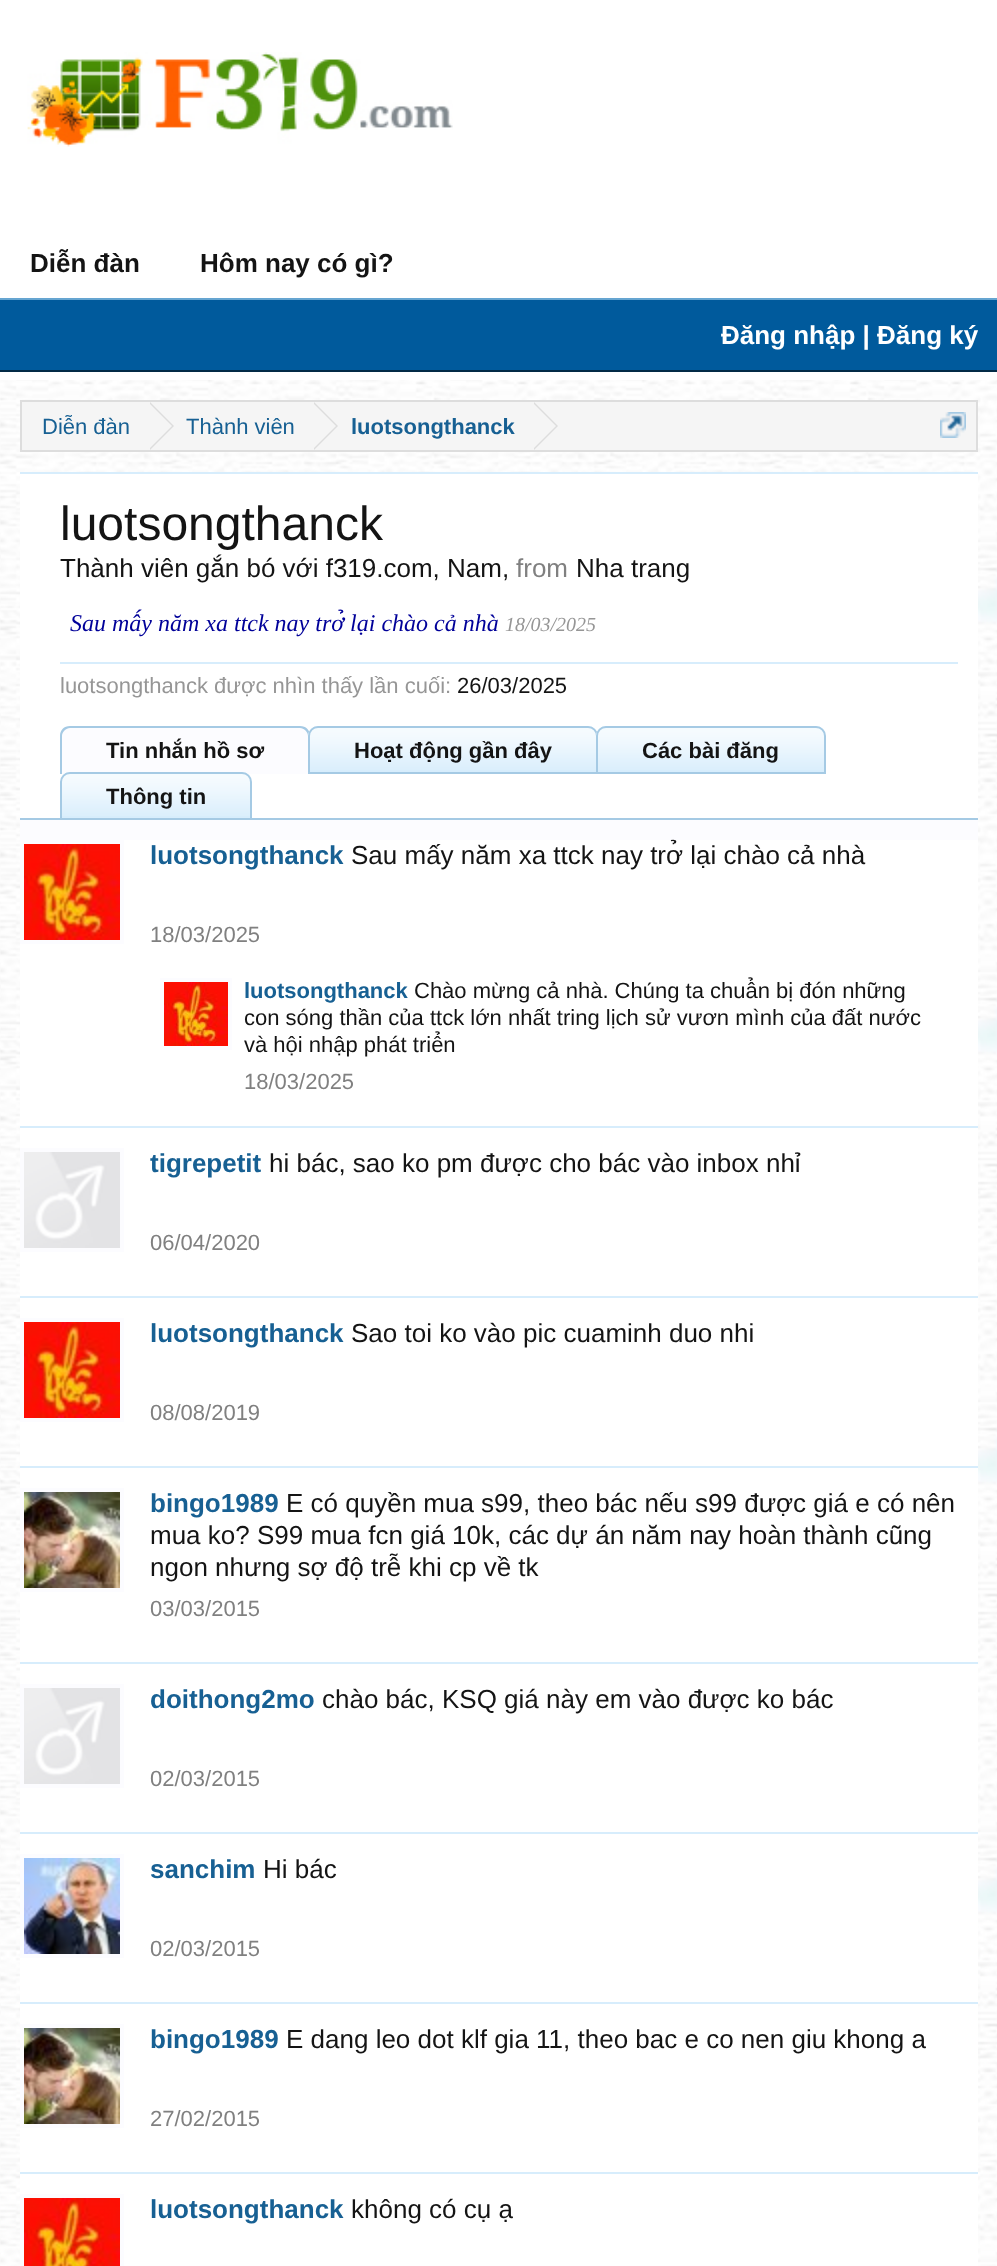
(async () => {
  const canvas = document.querySelector("canvas");
  canvas.width = 997;
  canvas.height = 2266;
  const ctx = canvas.getContext("2d");
  ctx.miterLimit = 4;
  ctx.fontKerning = "normal";
  async function loadImage(src) {
    const img = new Image();
    img.src = src;
    await img.decode();
    return img;
  }
  let path;

  ctx.fillStyle = "#ffffff";
  ctx.fillRect(0, 0, 997, 2266);
  ctx.drawImage(await loadImage("img/1.png"), 0, 380, 997, 1886);
  ctx.drawImage(await loadImage("img/2.png"), 27, 52, 426, 95);
  for (const [x, y, w, h, color] of [
    [0, 300, 997, 70, "#005a9c"],
    [0, 298, 997, 2, "#65a5d1"],
    [0, 370, 997, 2, "#032a46"],
  ]) {
    ctx.fillStyle = color;
    ctx.fillRect(x, y, w, h);
  }
  ctx.fillStyle = "#f5f5f5";
  ctx.beginPath();
  ctx.rect(21, 401, 956, 50);
  ctx.fill();
  ctx.strokeStyle = "#dddddd";
  ctx.lineWidth = 2;
  ctx.stroke();
  ctx.fillStyle = "#dddddd";
  path = new Path2D("M150 450V402L174 426Z");
  ctx.fill(path);
  ctx.fillStyle = "#f5f5f5";
  path = new Path2D("M148 450V402L172 426Z");
  ctx.fill(path);
  ctx.fillStyle = "#dddddd";
  path = new Path2D("M314 450V402L338 426Z");
  ctx.fill(path);
  ctx.fillStyle = "#f5f5f5";
  path = new Path2D("M312 450V402L336 426Z");
  ctx.fill(path);
  ctx.fillStyle = "#dddddd";
  path = new Path2D("M534 450V402L558 426Z");
  ctx.fill(path);
  ctx.fillStyle = "#f5f5f5";
  path = new Path2D("M532 450V402L556 426Z");
  ctx.fill(path);
  ctx.drawImage(await loadImage("img/3.png"), 940, 412, 26, 26);
  for (const [x, y, w, h, color] of [
    [20, 820, 958, 20, "#fcfcff"],
    [20, 474, 958, 344, "#ffffff"],
    [20, 472, 958, 2, "#d7edfc"],
    [60, 662, 898, 2, "#d7edfc"],
    [20, 818, 958, 2, "#a5cae4"],
  ]) {
    ctx.fillStyle = color;
    ctx.fillRect(x, y, w, h);
  }
  ctx.fillStyle = "#fcfcff";
  ctx.beginPath();
  ctx.roundRect(60, 726, 250, 48, [10, 10, 0, 0]);
  ctx.fill();
  ctx.fillStyle = "#a5cae4";
  path = new Path2D("M70 726H300C306 726 310 730 310 736V774H60V736C60 730 64 726 70 726ZM70 728H300C304 728 308 732 308 736V774H62V736C62 732 66 728 70 728Z");
  ctx.fill(path, "evenodd");
  ctx.fillStyle = "#d7edfc";
  ctx.beginPath();
  ctx.roundRect(308, 726, 290, 48, [10, 10, 0, 0]);
  ctx.fill();
  ctx.drawImage(await loadImage("img/4.png"), 308, 728, 289, 42);
  ctx.beginPath();
  ctx.roundRect(309, 727, 288, 46, [9, 9, 0, 0]);
  ctx.strokeStyle = "#a5cae4";
  ctx.stroke();
  ctx.beginPath();
  ctx.roundRect(596, 726, 230, 48, [10, 10, 0, 0]);
  ctx.fill();
  ctx.drawImage(await loadImage("img/5.png"), 596, 728, 230, 42);
  ctx.beginPath();
  ctx.roundRect(597, 727, 228, 46, [9, 9, 0, 0]);
  ctx.stroke();
  ctx.beginPath();
  ctx.roundRect(60, 772, 192, 48, [10, 10, 0, 0]);
  ctx.fill();
  ctx.drawImage(await loadImage("img/6.png"), 60, 774, 192, 42);
  ctx.beginPath();
  ctx.roundRect(61, 773, 190, 46, [9, 9, 0, 0]);
  ctx.stroke();
  for (const [x, y, w, h, color] of [
    [20, 840, 958, 1426, "#ffffff"],
    [20, 1126, 958, 2, "#d7edfc"],
    [20, 840, 104, 104, "#fcfcff"],
  ]) {
    ctx.fillStyle = color;
    ctx.fillRect(x, y, w, h);
  }
  ctx.drawImage(await loadImage("img/7.png"), 24, 844, 96, 96);
  ctx.fillRect(160, 978, 72, 72);
  ctx.drawImage(await loadImage("img/8.png"), 164, 982, 64, 64);
  ctx.fillStyle = "#d7edfc";
  ctx.fillRect(20, 1296, 958, 2);
  ctx.fillStyle = "#fcfcff";
  ctx.fillRect(20, 1148, 104, 104);
  ctx.drawImage(await loadImage("img/9.png"), 24, 1152, 96, 96);
  ctx.fillStyle = "#d7edfc";
  ctx.fillRect(20, 1466, 958, 2);
  ctx.fillStyle = "#fcfcff";
  ctx.fillRect(20, 1318, 104, 104);
  ctx.drawImage(await loadImage("img/7.png"), 24, 1322, 96, 96);
  ctx.fillStyle = "#d7edfc";
  ctx.fillRect(20, 1662, 958, 2);
  ctx.fillStyle = "#fcfcff";
  ctx.fillRect(20, 1488, 104, 104);
  ctx.drawImage(await loadImage("img/10.png"), 24, 1492, 96, 96);
  ctx.fillStyle = "#d7edfc";
  ctx.fillRect(20, 1832, 958, 2);
  ctx.fillStyle = "#fcfcff";
  ctx.fillRect(20, 1684, 104, 104);
  ctx.drawImage(await loadImage("img/9.png"), 24, 1688, 96, 96);
  ctx.fillStyle = "#d7edfc";
  ctx.fillRect(20, 2002, 958, 2);
  ctx.fillStyle = "#fcfcff";
  ctx.fillRect(20, 1854, 104, 104);
  ctx.drawImage(await loadImage("img/11.png"), 24, 1858, 96, 96);
  ctx.fillStyle = "#d7edfc";
  ctx.fillRect(20, 2172, 958, 2);
  ctx.fillStyle = "#fcfcff";
  ctx.fillRect(20, 2024, 104, 104);
  ctx.drawImage(await loadImage("img/10.png"), 24, 2028, 96, 96);
  ctx.fillRect(20, 2194, 104, 72);
  ctx.drawImage(await loadImage("img/12.png"), 24, 2198, 96, 68);
  ctx.font = "bold 26px Liberation Sans";
  ctx.fillStyle = "#141414";
  ctx.fillText("Diễn đàn", 30, 272);
  ctx.fillText("Hôm nay có gì?", 200, 272);
  ctx.fillStyle = "#ffffff";
  ctx.fillText("Đăng nhập | Đăng ký", 721, 344);
  ctx.font = "22px Liberation Sans";
  ctx.fillStyle = "#176093";
  ctx.fillText("Diễn đàn", 42, 434);
  ctx.fillText("Thành viên", 186, 434);
  ctx.font = "bold 22px Liberation Sans";
  ctx.fillText("luotsongthanck", 351, 434);
  ctx.font = "48px Liberation Sans";
  ctx.fillStyle = "#141414";
  ctx.fillText("luotsongthanck", 60, 540);
  ctx.font = "26px Liberation Sans";
  ctx.fillText("Thành viên gắn bó với f319.com, Nam,", 60, 577);
  ctx.fillStyle = "#808080";
  ctx.fillText("from", 516, 577);
  ctx.fillStyle = "#141414";
  ctx.fillText("Nha trang", 576, 577);
  ctx.font = "italic 24px Liberation Serif";
  ctx.fillStyle = "#000099";
  ctx.fillText("Sau mấy năm xa ttck nay trở lại chào cả nhà", 70, 631);
  ctx.font = "italic 20px Liberation Serif";
  ctx.fillStyle = "#969696";
  ctx.fillText("18/03/2025", 505, 631);
  ctx.font = "22px Liberation Sans";
  ctx.fillText("luotsongthanck được nhìn thấy lần cuối:", 60, 693);
  ctx.fillStyle = "#141414";
  ctx.fillText("26/03/2025", 457, 693);
  ctx.font = "bold 22px Liberation Sans";
  for (const [text, x, y] of [
    ["Tin nhắn hồ sơ", 106, 758],
    ["Hoạt động gần đây", 354, 758],
    ["Các bài đăng", 642, 758],
    ["Thông tin", 106, 804],
  ]) {
    ctx.fillText(text, x, y);
  }
  ctx.font = "bold 26px Liberation Sans";
  ctx.fillStyle = "#176093";
  ctx.fillText("luotsongthanck", 150, 864);
  ctx.font = "26px Liberation Sans";
  ctx.fillStyle = "#141414";
  ctx.fillText("Sau mấy năm xa ttck nay trở lại chào cả nhà", 351, 864);
  ctx.font = "22px Liberation Sans";
  ctx.fillStyle = "#808080";
  ctx.fillText("18/03/2025", 150, 942);
  ctx.font = "bold 22px Liberation Sans";
  ctx.fillStyle = "#176093";
  ctx.fillText("luotsongthanck", 244, 998);
  ctx.font = "22px Liberation Sans";
  ctx.fillStyle = "#141414";
  for (const [text, x, y] of [
    ["Chào mừng cả nhà. Chúng ta chuẩn bị đón những", 414, 998],
    ["con sóng thần của ttck lớn nhất tring lịch sử vươn mình của đất nước", 244, 1025],
    ["và hội nhập phát triển", 244, 1052],
  ]) {
    ctx.fillText(text, x, y);
  }
  ctx.fillStyle = "#808080";
  ctx.fillText("18/03/2025", 244, 1089);
  ctx.font = "bold 26px Liberation Sans";
  ctx.fillStyle = "#176093";
  ctx.fillText("tigrepetit", 150, 1172);
  ctx.font = "26px Liberation Sans";
  ctx.fillStyle = "#141414";
  ctx.fillText("hi bác, sao ko pm được cho bác vào inbox nhỉ", 269, 1172);
  ctx.font = "22px Liberation Sans";
  ctx.fillStyle = "#808080";
  ctx.fillText("06/04/2020", 150, 1250);
  ctx.font = "bold 26px Liberation Sans";
  ctx.fillStyle = "#176093";
  ctx.fillText("luotsongthanck", 150, 1342);
  ctx.font = "26px Liberation Sans";
  ctx.fillStyle = "#141414";
  ctx.fillText("Sao toi ko vào pic cuaminh duo nhi", 351, 1342);
  ctx.font = "22px Liberation Sans";
  ctx.fillStyle = "#808080";
  ctx.fillText("08/08/2019", 150, 1420);
  ctx.font = "bold 26px Liberation Sans";
  ctx.fillStyle = "#176093";
  ctx.fillText("bingo1989", 150, 1512);
  ctx.font = "26px Liberation Sans";
  ctx.fillStyle = "#141414";
  for (const [text, x, y] of [
    ["E có quyền mua s99, theo bác nếu s99 được giá e có nên", 286, 1512],
    ["mua ko? S99 mua fcn giá 10k, các dự án năm nay hoàn thành cũng", 150, 1544],
    ["ngon nhưng sợ độ trễ khi cp về tk", 150, 1576],
  ]) {
    ctx.fillText(text, x, y);
  }
  ctx.font = "22px Liberation Sans";
  ctx.fillStyle = "#808080";
  ctx.fillText("03/03/2015", 150, 1616);
  ctx.font = "bold 26px Liberation Sans";
  ctx.fillStyle = "#176093";
  ctx.fillText("doithong2mo", 150, 1708);
  ctx.font = "26px Liberation Sans";
  ctx.fillStyle = "#141414";
  ctx.fillText("chào bác, KSQ giá này em vào được ko bác", 322, 1708);
  ctx.font = "22px Liberation Sans";
  ctx.fillStyle = "#808080";
  ctx.fillText("02/03/2015", 150, 1786);
  ctx.font = "bold 26px Liberation Sans";
  ctx.fillStyle = "#176093";
  ctx.fillText("sanchim", 150, 1878);
  ctx.font = "26px Liberation Sans";
  ctx.fillStyle = "#141414";
  ctx.fillText("Hi bác", 263, 1878);
  ctx.font = "22px Liberation Sans";
  ctx.fillStyle = "#808080";
  ctx.fillText("02/03/2015", 150, 1956);
  ctx.font = "bold 26px Liberation Sans";
  ctx.fillStyle = "#176093";
  ctx.fillText("bingo1989", 150, 2048);
  ctx.font = "26px Liberation Sans";
  ctx.fillStyle = "#141414";
  ctx.fillText("E dang leo dot klf gia 11, theo bac e co nen giu khong a", 286, 2048);
  ctx.font = "22px Liberation Sans";
  ctx.fillStyle = "#808080";
  ctx.fillText("27/02/2015", 150, 2126);
  ctx.font = "bold 26px Liberation Sans";
  ctx.fillStyle = "#176093";
  ctx.fillText("luotsongthanck", 150, 2218);
  ctx.font = "26px Liberation Sans";
  ctx.fillStyle = "#141414";
  ctx.fillText("không có cụ ạ", 351, 2218);
})();
